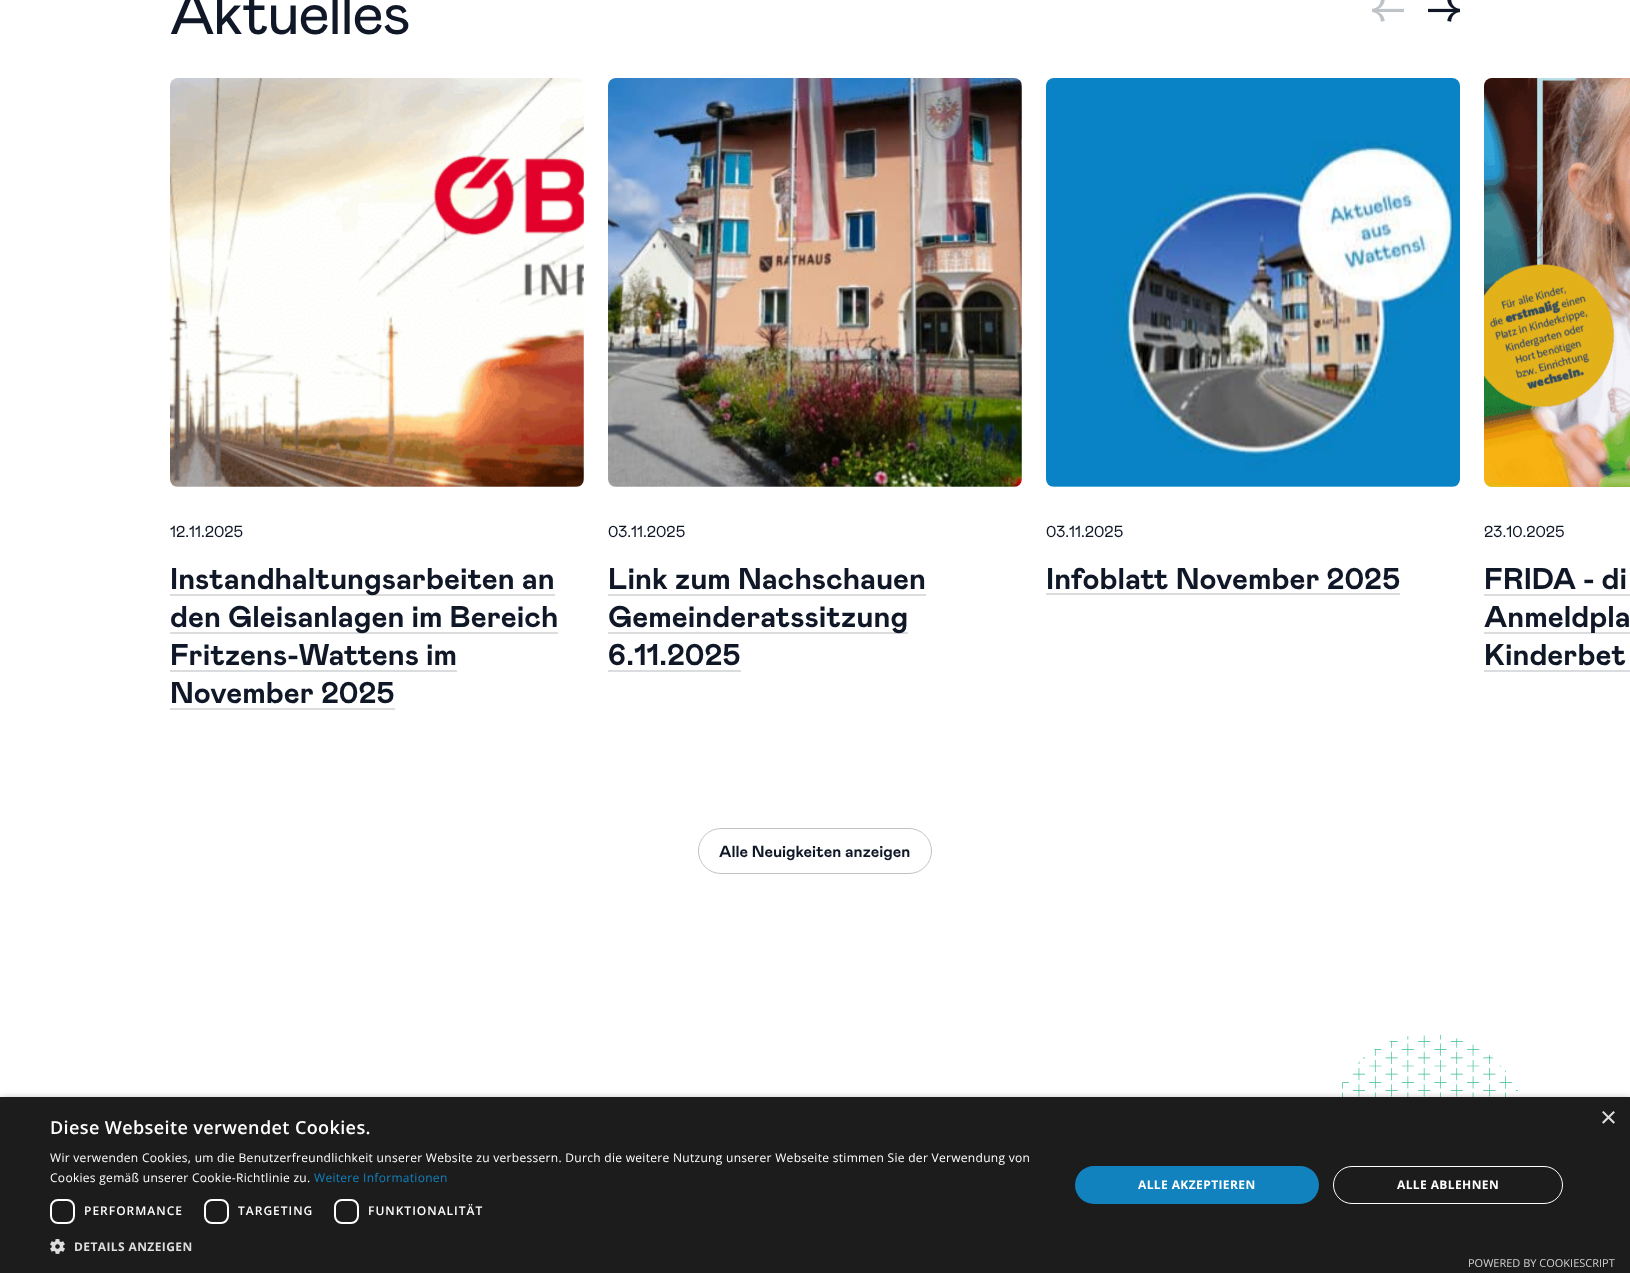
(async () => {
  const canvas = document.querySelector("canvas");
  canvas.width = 1630;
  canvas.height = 1273;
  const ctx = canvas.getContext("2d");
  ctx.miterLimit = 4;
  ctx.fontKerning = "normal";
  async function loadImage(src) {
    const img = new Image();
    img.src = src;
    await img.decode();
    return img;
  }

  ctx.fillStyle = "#ffffff";
  ctx.fillRect(0, 0, 1630, 1273);
  ctx.drawImage(await loadImage("img/1.png"), 1372, 0, 32, 22);
  ctx.drawImage(await loadImage("img/2.png"), 1428, 0, 32, 22);
  ctx.drawImage(await loadImage("img/3.png"), 170, 78, 414, 409);
  for (const [x, y, w, h, color] of [
    [170, 594, 385, 2, "#dbdcdd"],
    [170, 632, 388, 2, "#dbdcdd"],
    [170, 670, 287, 2, "#dbdcdd"],
    [170, 708, 225, 2, "#dbdcdd"],
  ]) {
    ctx.fillStyle = color;
    ctx.fillRect(x, y, w, h);
  }
  ctx.drawImage(await loadImage("img/4.png"), 608, 78, 414, 409);
  for (const [x, y, w, h, color] of [
    [608, 594, 318, 2, "#dbdcdd"],
    [608, 632, 300, 2, "#dbdcdd"],
    [608, 670, 133, 2, "#dbdcdd"],
  ]) {
    ctx.fillStyle = color;
    ctx.fillRect(x, y, w, h);
  }
  ctx.drawImage(await loadImage("img/5.png"), 1046, 78, 414, 409);
  ctx.fillRect(1046, 593, 354, 2);
  ctx.drawImage(await loadImage("img/6.png"), 1484, 78, 146, 409);
  for (const [x, y, w, h, color] of [
    [1484, 594, 146, 2, "#dbdcdd"],
    [1484, 632, 146, 2, "#dbdcdd"],
    [1484, 670, 146, 2, "#dbdcdd"],
  ]) {
    ctx.fillStyle = color;
    ctx.fillRect(x, y, w, h);
  }
  ctx.beginPath();
  ctx.roundRect(698.5, 828.5, 233, 45, 22.5);
  ctx.strokeStyle = "#bec3c8";
  ctx.stroke();
  ctx.drawImage(await loadImage("img/7.png"), 1342, 1034, 176, 63);
  ctx.fillStyle = "rgba(0, 0, 0, 0.35)";
  ctx.filter = "blur(4px)";
  ctx.beginPath();
  ctx.rect(1, 1099, 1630, 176);
  ctx.fill();
  ctx.filter = "none";
  ctx.fillStyle = "#1c1c1c";
  ctx.fillRect(0, 1097, 1630, 176);
  ctx.beginPath();
  ctx.roundRect(51, 1200, 23, 23, 7);
  ctx.strokeStyle = "#ffffff";
  ctx.lineWidth = 2;
  ctx.stroke();
  ctx.beginPath();
  ctx.roundRect(205, 1200, 23, 23, 7);
  ctx.stroke();
  ctx.beginPath();
  ctx.roundRect(335, 1200, 23, 23, 7);
  ctx.stroke();
  ctx.drawImage(await loadImage("img/8.png"), 50, 1239, 15, 15);
  ctx.fillStyle = "#1282be";
  ctx.beginPath();
  ctx.roundRect(1075, 1166, 244, 38, 19);
  ctx.fill();
  ctx.beginPath();
  ctx.roundRect(1333.5, 1166.5, 229, 37, 18.5);
  ctx.lineWidth = 1;
  ctx.stroke();
  ctx.letterSpacing = "-1.25px";
  ctx.font = "60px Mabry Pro";
  ctx.fillStyle = "#101828";
  ctx.fillText("Aktuelles", 170, 34);
  ctx.letterSpacing = "0px";
  ctx.font = "16px Mabry Pro";
  ctx.fillText("12.11.2025", 170, 537);
  ctx.font = "bold 30px Mabry Pro";
  for (const [text, x, y] of [
    ["Instandhaltungsarbeiten an", 170, 589],
    ["den Gleisanlagen im Bereich", 170, 627],
    ["Fritzens-Wattens im", 170, 665],
    ["November 2025", 170, 703],
  ]) {
    ctx.fillText(text, x, y);
  }
  ctx.font = "16px Mabry Pro";
  ctx.fillText("03.11.2025", 608, 537);
  ctx.font = "bold 30px Mabry Pro";
  for (const [text, x, y] of [
    ["Link zum Nachschauen", 608, 589],
    ["Gemeinderatssitzung", 608, 627],
    ["6.11.2025", 608, 665],
  ]) {
    ctx.fillText(text, x, y);
  }
  ctx.font = "16px Mabry Pro";
  ctx.fillText("03.11.2025", 1046, 537);
  ctx.font = "bold 30px Mabry Pro";
  ctx.fillText("Infoblatt November 2025", 1046, 589);
  ctx.font = "16px Mabry Pro";
  ctx.fillText("23.10.2025", 1484, 537);
  ctx.font = "bold 30px Mabry Pro";
  for (const [text, x, y] of [
    ["FRIDA - di", 1484, 589],
    ["Anmeldpla", 1484, 627],
    ["Kinderbet", 1484, 665],
  ]) {
    ctx.fillText(text, x, y);
  }
  ctx.font = "bold 16px Mabry Pro";
  ctx.fillText("Alle Neuigkeiten anzeigen", 719, 857);
  ctx.font = "29px Liberation Sans";
  ctx.fillStyle = "#dddddd";
  ctx.fillText("×", 1600, 1127);
  ctx.letterSpacing = "0.4px";
  ctx.font = "600 18px Open Sans";
  ctx.fillStyle = "#ffffff";
  ctx.fillText("Diese Webseite verwendet Cookies.", 50, 1134);
  ctx.letterSpacing = "0.3px";
  ctx.font = "12px Open Sans";
  ctx.fillText("Wir verwenden Cookies, um die Benutzerfreundlichkeit unserer Website zu verbessern. Durch die weitere Nutzung unserer Webseite stimmen Sie der Verwendung von", 50, 1162);
  ctx.fillText("Cookies gemäß unserer Cookie-Richtlinie zu.", 50, 1182);
  ctx.fillStyle = "#1282be";
  ctx.fillText("Weitere Informationen", 314, 1182);
  ctx.letterSpacing = "1px";
  ctx.font = "600 12px Open Sans";
  ctx.fillStyle = "#ffffff";
  for (const [text, x, y] of [
    ["PERFORMANCE", 84, 1215],
    ["TARGETING", 238, 1215],
    ["FUNKTIONALITÄT", 368, 1215],
  ]) {
    ctx.fillText(text, x, y);
  }
  ctx.letterSpacing = "0.4px";
  ctx.font = "bold 12px Open Sans";
  ctx.fillStyle = "#dddddd";
  ctx.fillText("DETAILS ANZEIGEN", 74, 1251);
  ctx.fillStyle = "#ffffff";
  ctx.fillText("ALLE AKZEPTIEREN", 1138, 1189);
  ctx.fillText("ALLE ABLEHNEN", 1397, 1189);
  ctx.letterSpacing = "0px";
  ctx.font = "11px Open Sans";
  ctx.fillStyle = "#d2d2d2";
  ctx.fillText("POWERED BY COOKIESCRIPT", 1468, 1267);
})();
